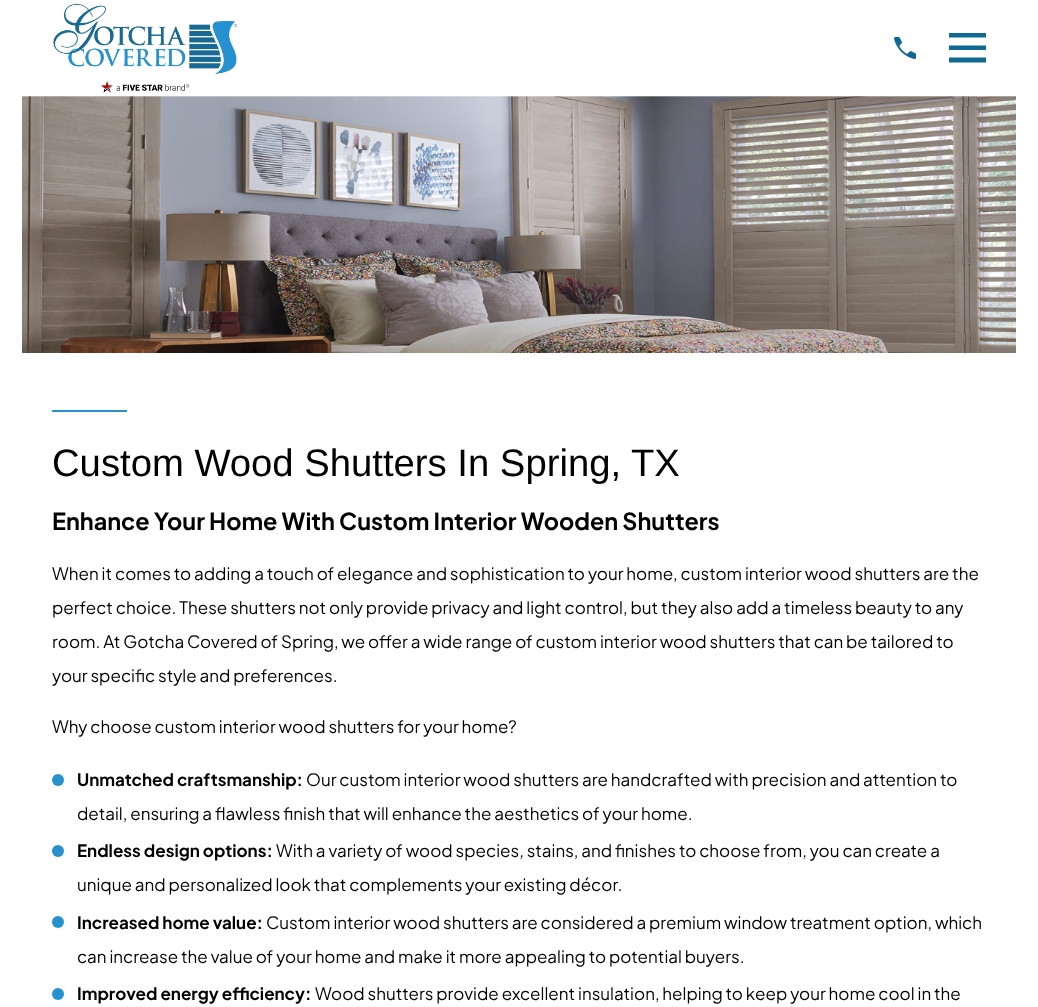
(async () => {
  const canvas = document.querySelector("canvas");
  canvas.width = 1038;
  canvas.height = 1007;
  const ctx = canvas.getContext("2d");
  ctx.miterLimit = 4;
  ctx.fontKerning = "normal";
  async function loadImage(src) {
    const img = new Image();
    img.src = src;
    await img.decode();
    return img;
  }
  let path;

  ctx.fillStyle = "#ffffff";
  ctx.fillRect(0, 0, 1038, 1007);
  ctx.drawImage(await loadImage("img/1.png"), 53, 3, 185, 90);
  ctx.drawImage(await loadImage("img/2.png"), 894, 37, 22, 22);
  ctx.save();
  ctx.beginPath();
  ctx.rect(949, 29, 37, 38);
  ctx.clip();
  ctx.fillStyle = "#106992";
  path = new Path2D("M949 33V37.5H986.5V33ZM949 45.5V50H986.5V45.5ZM949 57.5V62.5H986.5V57.5Z");
  ctx.fill(path);
  ctx.restore();
  ctx.drawImage(await loadImage("img/3.png"), 22, 96, 994, 257);
  ctx.fillStyle = "#2791d0";
  ctx.fillRect(52, 410, 75, 2);
  ctx.beginPath();
  ctx.arc(58, 780, 6, 0, Math.PI * 2);
  ctx.fill();
  ctx.beginPath();
  ctx.arc(58, 851, 6, 0, Math.PI * 2);
  ctx.fill();
  ctx.beginPath();
  ctx.arc(58, 922, 6, 0, Math.PI * 2);
  ctx.fill();
  ctx.beginPath();
  ctx.arc(58, 994, 6, 0, Math.PI * 2);
  ctx.fill();
  ctx.font = "38.25px Liberation Sans";
  ctx.fillStyle = "#000000";
  ctx.fillText("Custom Wood Shutters In Spring, TX", 52, 476);
  ctx.font = "bold 23.4px Plus Jakarta Sans";
  ctx.fillText("Enhance Your Home With Custom Interior Wooden Shutters", 52, 530);
  ctx.font = "17px Plus Jakarta Sans";
  for (const [text, x, y] of [
    ["When it comes to adding a touch of elegance and sophistication to your home, custom interior wood shutters are the", 52, 580],
    ["perfect choice. These shutters not only provide privacy and light control, but they also add a timeless beauty to any", 52, 614],
    ["room. At Gotcha Covered of Spring, we offer a wide range of custom interior wood shutters that can be tailored to", 52, 648],
    ["your specific style and preferences.", 52, 682],
    ["Why choose custom interior wood shutters for your home?", 52, 733],
  ]) {
    ctx.fillText(text, x, y);
  }
  ctx.font = "bold 17px Plus Jakarta Sans";
  ctx.fillText("Unmatched craftsmanship:", 77, 786);
  ctx.font = "17px Plus Jakarta Sans";
  ctx.fillText("Our custom interior wood shutters are handcrafted with precision and attention to", 306, 786);
  ctx.fillText("detail, ensuring a flawless finish that will enhance the aesthetics of your home.", 77, 820);
  ctx.font = "bold 17px Plus Jakarta Sans";
  ctx.fillText("Endless design options:", 77, 857);
  ctx.font = "17px Plus Jakarta Sans";
  ctx.fillText("With a variety of wood species, stains, and finishes to choose from, you can create a", 276, 857);
  ctx.fillText("unique and personalized look that complements your existing décor.", 77, 891);
  ctx.font = "bold 17px Plus Jakarta Sans";
  ctx.fillText("Increased home value:", 77, 929);
  ctx.font = "17px Plus Jakarta Sans";
  ctx.fillText("Custom interior wood shutters are considered a premium window treatment option, which", 266, 929);
  ctx.fillText("can increase the value of your home and make it more appealing to potential buyers.", 77, 963);
  ctx.font = "bold 17px Plus Jakarta Sans";
  ctx.fillText("Improved energy efficiency:", 77, 1000);
  ctx.font = "17px Plus Jakarta Sans";
  ctx.fillText("Wood shutters provide excellent insulation, helping to keep your home cool in the", 315, 1000);
})();
